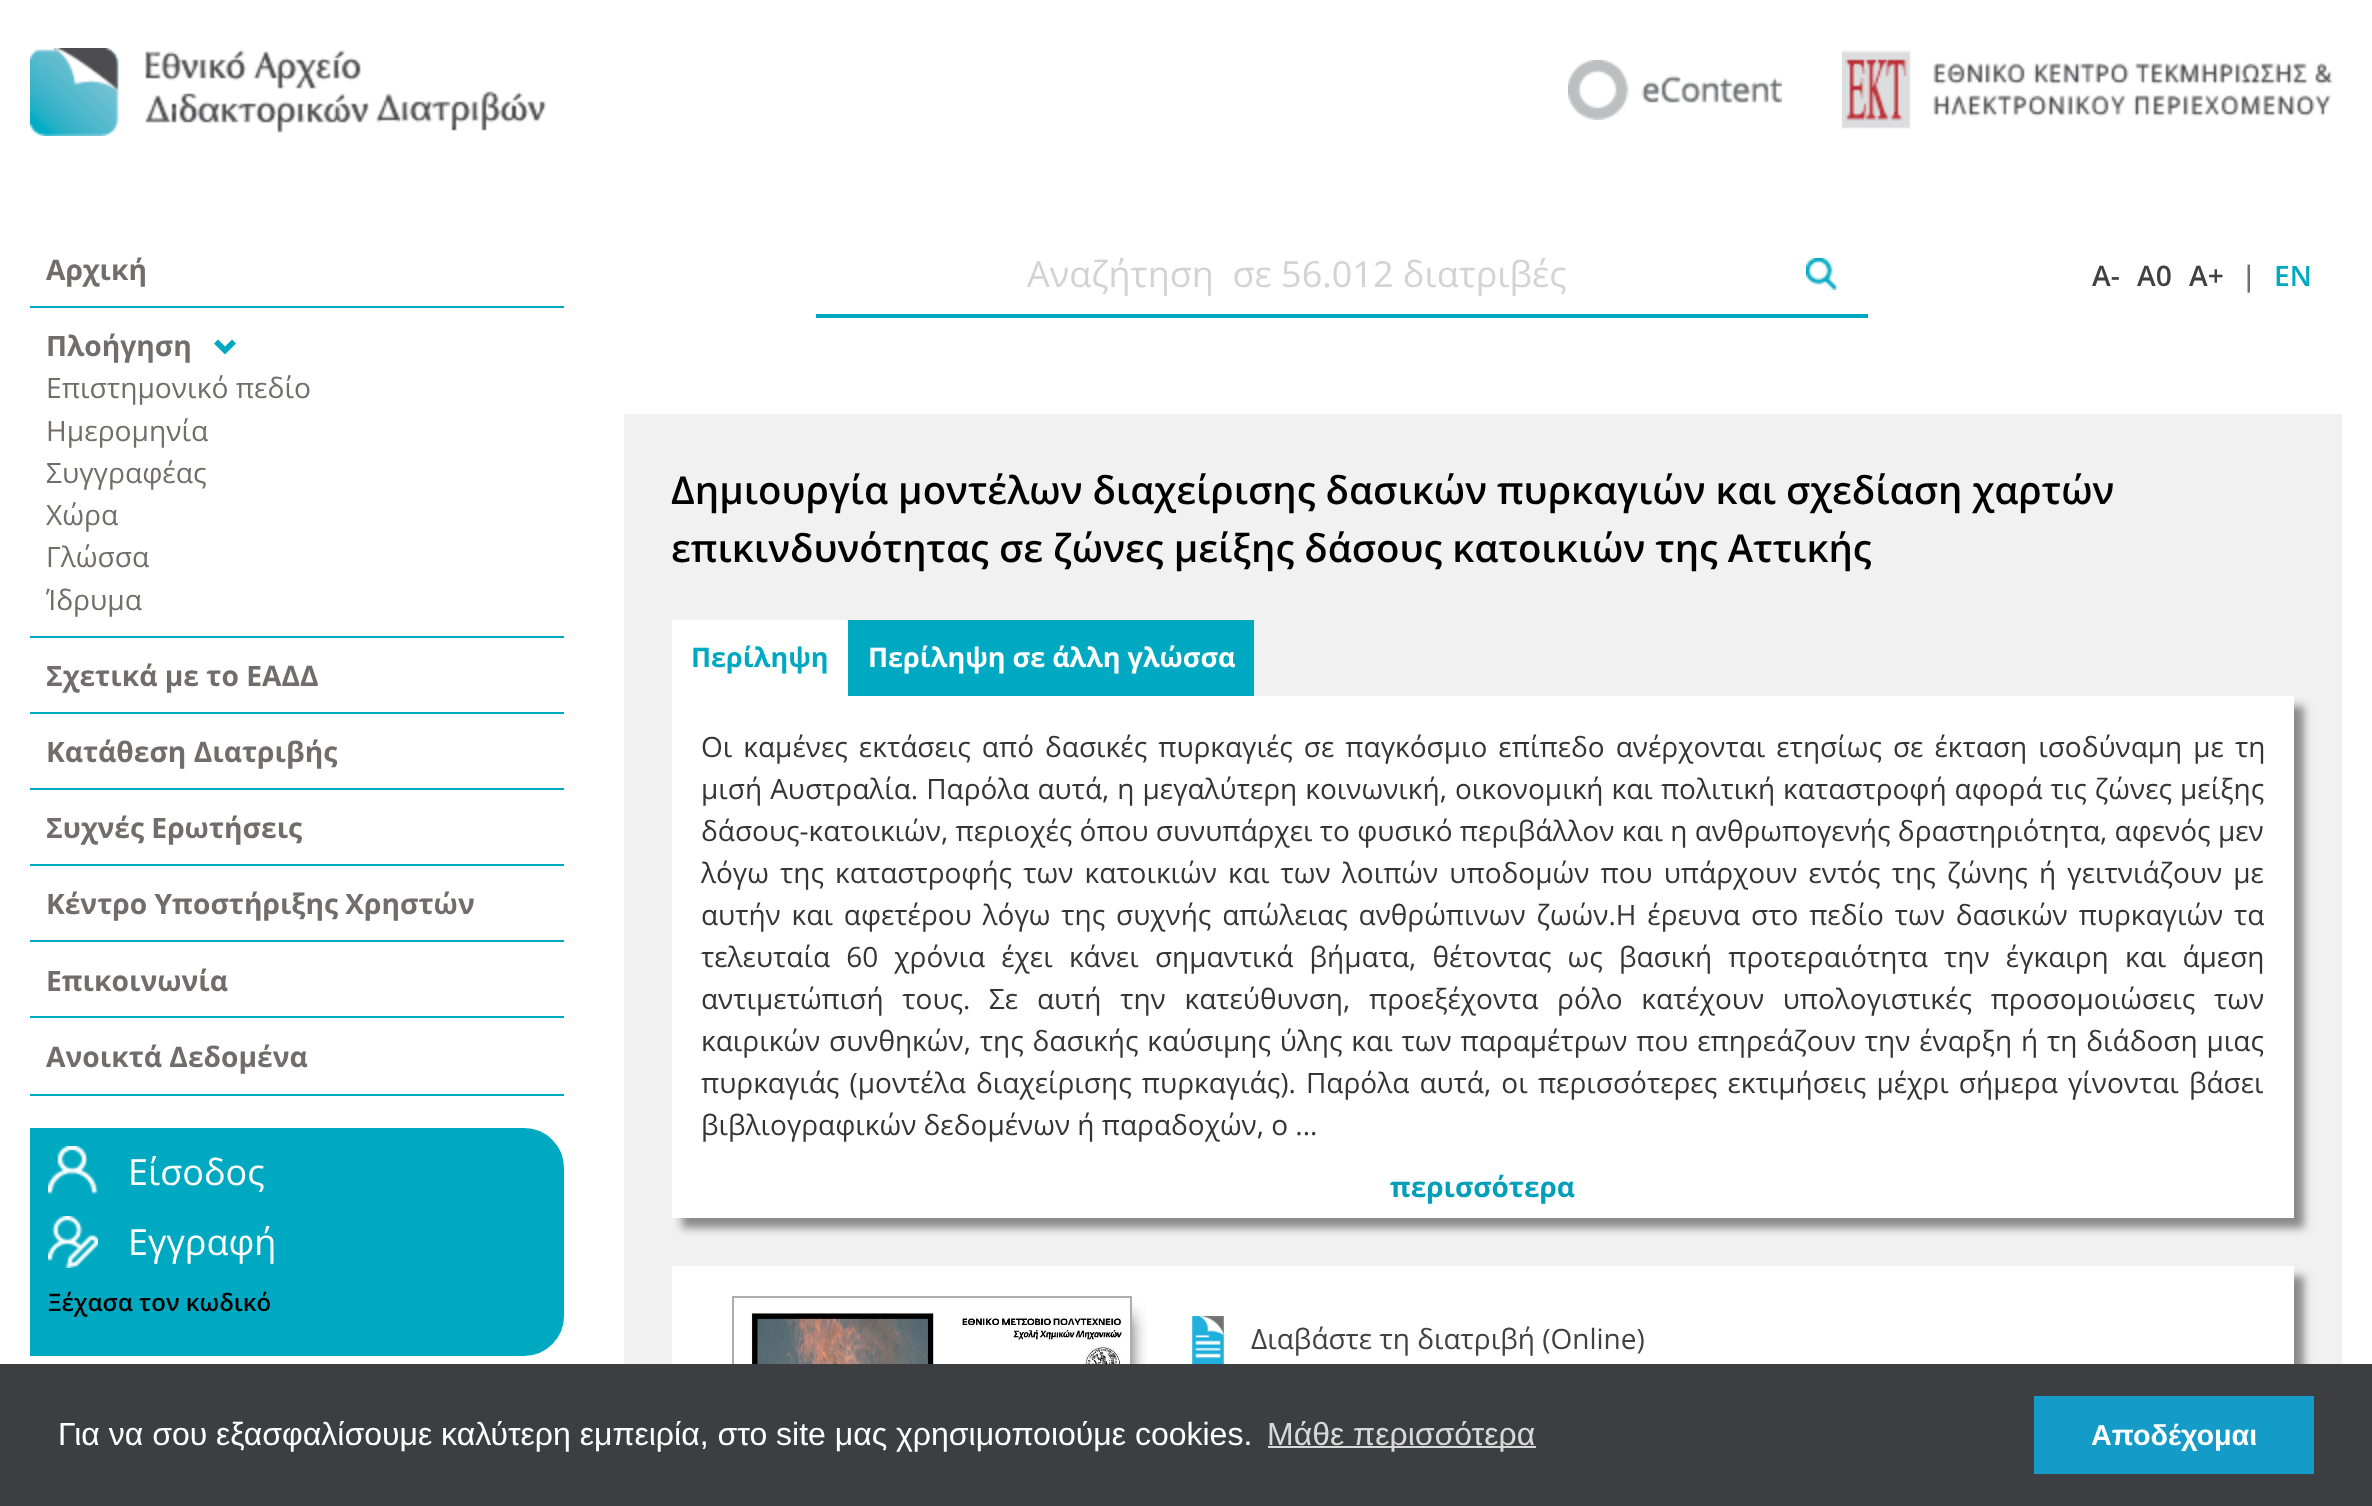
(async () => {
  const canvas = document.querySelector("canvas");
  canvas.width = 2372;
  canvas.height = 1506;
  const ctx = canvas.getContext("2d");
  ctx.miterLimit = 4;
  ctx.fontKerning = "normal";
  async function loadImage(src) {
    const img = new Image();
    img.src = src;
    await img.decode();
    return img;
  }
  let path;

  ctx.fillStyle = "#ffffff";
  ctx.fillRect(0, 0, 2372, 1506);
  ctx.drawImage(await loadImage("img/1.png"), 30, 48, 516, 88);
  ctx.drawImage(await loadImage("img/2.png"), 1568, 60, 214, 60);
  ctx.drawImage(await loadImage("img/3.png"), 1842, 50, 491, 79);
  ctx.fillStyle = "#00a9c2";
  ctx.fillRect(30, 306, 534, 2);
  ctx.fillRect(30, 636, 534, 2);
  path = new Path2D("M218 339.5L225 346.5L232 339.5L236 343.5L225 354.5L214 343.5Z");
  ctx.fill(path);
  for (const [x, y, w, h, color] of [
    [30, 712, 534, 2, "#00a9c2"],
    [30, 788, 534, 2, "#00a9c2"],
    [30, 864, 534, 2, "#00a9c2"],
    [30, 940, 534, 2, "#00a9c2"],
    [30, 1016, 534, 2, "#00a9c2"],
    [30, 1094, 534, 2, "#00a9c2"],
  ]) {
    ctx.fillStyle = color;
    ctx.fillRect(x, y, w, h);
  }
  ctx.beginPath();
  ctx.roundRect(31, 1129, 532, 226, [0, 39, 39, 0]);
  ctx.fill();
  ctx.strokeStyle = "#00a9c2";
  ctx.lineWidth = 2;
  ctx.stroke();
  ctx.drawImage(await loadImage("img/4.png"), 48, 1146, 50, 48);
  ctx.drawImage(await loadImage("img/5.png"), 48, 1216, 50, 52);
  ctx.fillRect(816, 314, 1052, 4);
  ctx.drawImage(await loadImage("img/6.png"), 1806, 258, 31, 32);
  ctx.fillStyle = "#f1f1f2";
  ctx.fillRect(624, 414, 1718, 950);
  ctx.fillStyle = "#8a8a8a";
  ctx.filter = "blur(4px)";
  ctx.beginPath();
  ctx.rect(682, 706, 1622, 522);
  ctx.fill();
  ctx.filter = "none";
  for (const [x, y, w, h, color] of [
    [672, 620, 176, 76, "#ffffff"],
    [848, 620, 406, 76, "#00a9c2"],
    [672, 696, 1622, 522, "#ffffff"],
  ]) {
    ctx.fillStyle = color;
    ctx.fillRect(x, y, w, h);
  }
  ctx.fillStyle = "#8a8a8a";
  ctx.filter = "blur(4px)";
  ctx.beginPath();
  ctx.rect(682, 1276, 1622, 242);
  ctx.fill();
  ctx.filter = "none";
  ctx.fillStyle = "#ffffff";
  ctx.fillRect(672, 1266, 1622, 98);
  ctx.save();
  ctx.beginPath();
  ctx.rect(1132, 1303, 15, 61);
  ctx.clip();
  ctx.fillStyle = "rgba(0, 0, 0, 0.75)";
  ctx.filter = "blur(9px)";
  ctx.beginPath();
  ctx.rect(754, 1316, 376, 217);
  ctx.fill();
  ctx.filter = "none";
  ctx.restore();
  ctx.strokeStyle = "#adadad";
  ctx.strokeRect(733, 1297, 398, 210);
  ctx.drawImage(await loadImage("img/7.png"), 751, 1313, 372, 51);
  ctx.drawImage(await loadImage("img/8.png"), 1192, 1316, 32, 48);
  for (const [x, y, w, h, color] of [
    [0, 1364, 2372, 142, "#3d3e42"],
    [1268, 1446, 268, 2, "#d8d8d9"],
    [2034, 1396, 280, 78, "#149bc7"],
  ]) {
    ctx.fillStyle = color;
    ctx.fillRect(x, y, w, h);
  }
  ctx.font = "bold 28.2px Open Sans";
  ctx.fillStyle = "#726d6a";
  ctx.fillText("Αρχική", 46, 280);
  ctx.fillText("Πλοήγηση", 46, 356);
  ctx.font = "28.2px Open Sans";
  for (const [text, x, y] of [
    ["Επιστημονικό πεδίο", 46, 398],
    ["Ημερομηνία", 46, 441],
    ["Συγγραφέας", 46, 483],
    ["Χώρα", 46, 525],
    ["Γλώσσα", 46, 567],
    ["Ίδρυμα", 46, 610],
  ]) {
    ctx.fillText(text, x, y);
  }
  ctx.font = "bold 28.2px Open Sans";
  for (const [text, x, y] of [
    ["Σχετικά με το ΕΑΔΔ", 46, 686],
    ["Κατάθεση Διατριβής", 46, 762],
    ["Συχνές Ερωτήσεις", 46, 838],
    ["Κέντρο Υποστήριξης Χρηστών", 46, 914],
    ["Επικοινωνία", 46, 991],
    ["Ανοικτά Δεδομένα", 46, 1067],
  ]) {
    ctx.fillText(text, x, y);
  }
  ctx.font = "36px Open Sans";
  ctx.fillStyle = "#ffffff";
  ctx.fillText("Είσοδος", 128, 1185);
  ctx.fillText("Εγγραφή", 128, 1255);
  ctx.font = "600 24px Open Sans";
  ctx.fillStyle = "#000000";
  ctx.fillText("Ξέχασα τον κωδικό", 48, 1311);
  ctx.font = "36px Open Sans";
  ctx.fillStyle = "#d3d3d3";
  ctx.fillText("Αναζήτηση  σε 56.012 διατριβές", 1027, 287);
  ctx.font = "600 28.2px Open Sans";
  ctx.fillStyle = "#414042";
  for (const [text, x, y] of [
    ["A-", 2092, 286],
    ["A0", 2137, 286],
    ["A+", 2189, 286],
  ]) {
    ctx.fillText(text, x, y);
  }
  ctx.fillStyle = "#726d6a";
  ctx.fillText("|", 2241, 286);
  ctx.fillStyle = "#00a9c2";
  ctx.fillText("EN", 2274, 286);
  ctx.font = "600 38.4px Open Sans";
  ctx.fillStyle = "#000000";
  ctx.fillText("Δημιουργία μοντέλων διαχείρισης δασικών πυρκαγιών και σχεδίαση χαρτών", 671, 504);
  ctx.fillText("επικινδυνότητας σε ζώνες μείξης δάσους κατοικιών της Αττικής", 671, 562);
  ctx.font = "bold 27px Open Sans";
  ctx.fillStyle = "#00a9c2";
  ctx.fillText("Περίληψη", 691, 667);
  ctx.fillStyle = "#ffffff";
  ctx.fillText("Περίληψη σε άλλη γλώσσα", 868, 667);
  ctx.wordSpacing = "3.75px";
  ctx.font = "28px Open Sans";
  ctx.fillStyle = "#353535";
  ctx.fillText("Οι καμένες εκτάσεις από δασικές πυρκαγιές σε παγκόσμιο επίπεδο ανέρχονται ετησίως σε έκταση ισοδύναμη με τη", 701, 757);
  ctx.wordSpacing = "0.75px";
  ctx.fillText("μισή Αυστραλία. Παρόλα αυτά, η μεγαλύτερη κοινωνική, οικονομική και πολιτική καταστροφή αφορά τις ζώνες μείξης", 701, 799);
  ctx.wordSpacing = "0px";
  ctx.fillText("δάσους-κατοικιών, περιοχές όπου συνυπάρχει το φυσικό περιβάλλον και η ανθρωπογενής δραστηριότητα, αφενός μεν", 701, 841);
  ctx.wordSpacing = "3.9px";
  ctx.fillText("λόγω της καταστροφής των κατοικιών και των λοιπών υποδομών που υπάρχουν εντός της ζώνης ή γειτνιάζουν με", 701, 883);
  ctx.wordSpacing = "3.6px";
  ctx.fillText("αυτήν και αφετέρου λόγω της συχνής απώλειας ανθρώπινων ζωών.Η έρευνα στο πεδίο των δασικών πυρκαγιών τα", 701, 925);
  ctx.wordSpacing = "8.9px";
  ctx.fillText("τελευταία 60 χρόνια έχει κάνει σημαντικά βήματα, θέτοντας ως βασική προτεραιότητα την έγκαιρη και άμεση", 701, 967);
  ctx.wordSpacing = "11.4px";
  ctx.fillText("αντιμετώπισή τους. Σε αυτή την κατεύθυνση, προεξέχοντα ρόλο κατέχουν υπολογιστικές προσομοιώσεις των", 701, 1009);
  ctx.wordSpacing = "1.6px";
  ctx.fillText("καιρικών συνθηκών, της δασικής καύσιμης ύλης και των παραμέτρων που επηρεάζουν την έναρξη ή τη διάδοση μιας", 701, 1051);
  ctx.wordSpacing = "2.9px";
  ctx.fillText("πυρκαγιάς (μοντέλα διαχείρισης πυρκαγιάς). Παρόλα αυτά, οι περισσότερες εκτιμήσεις μέχρι σήμερα γίνονται βάσει", 701, 1093);
  ctx.wordSpacing = "0px";
  ctx.fillText("βιβλιογραφικών δεδομένων ή παραδοχών, ο ...", 701, 1135);
  ctx.font = "bold 28px Open Sans";
  ctx.fillStyle = "#019fba";
  ctx.fillText("περισσότερα", 1390, 1197);
  ctx.font = "28px Open Sans";
  ctx.fillStyle = "#414042";
  ctx.fillText("Διαβάστε τη διατριβή (Online)", 1251, 1349);
  ctx.font = "32px Liberation Sans";
  ctx.fillStyle = "#ffffff";
  ctx.fillText("Για να σου εξασφαλίσουμε καλύτερη εμπειρία, στο site μας χρησιμοποιούμε cookies.", 58, 1445);
  ctx.fillStyle = "#d8d8d9";
  ctx.fillText("Μάθε περισσότερα", 1267, 1445);
  ctx.font = "bold 28.75px Liberation Sans";
  ctx.fillStyle = "#ffffff";
  ctx.fillText("Αποδέχομαι", 2091, 1445);
})();
